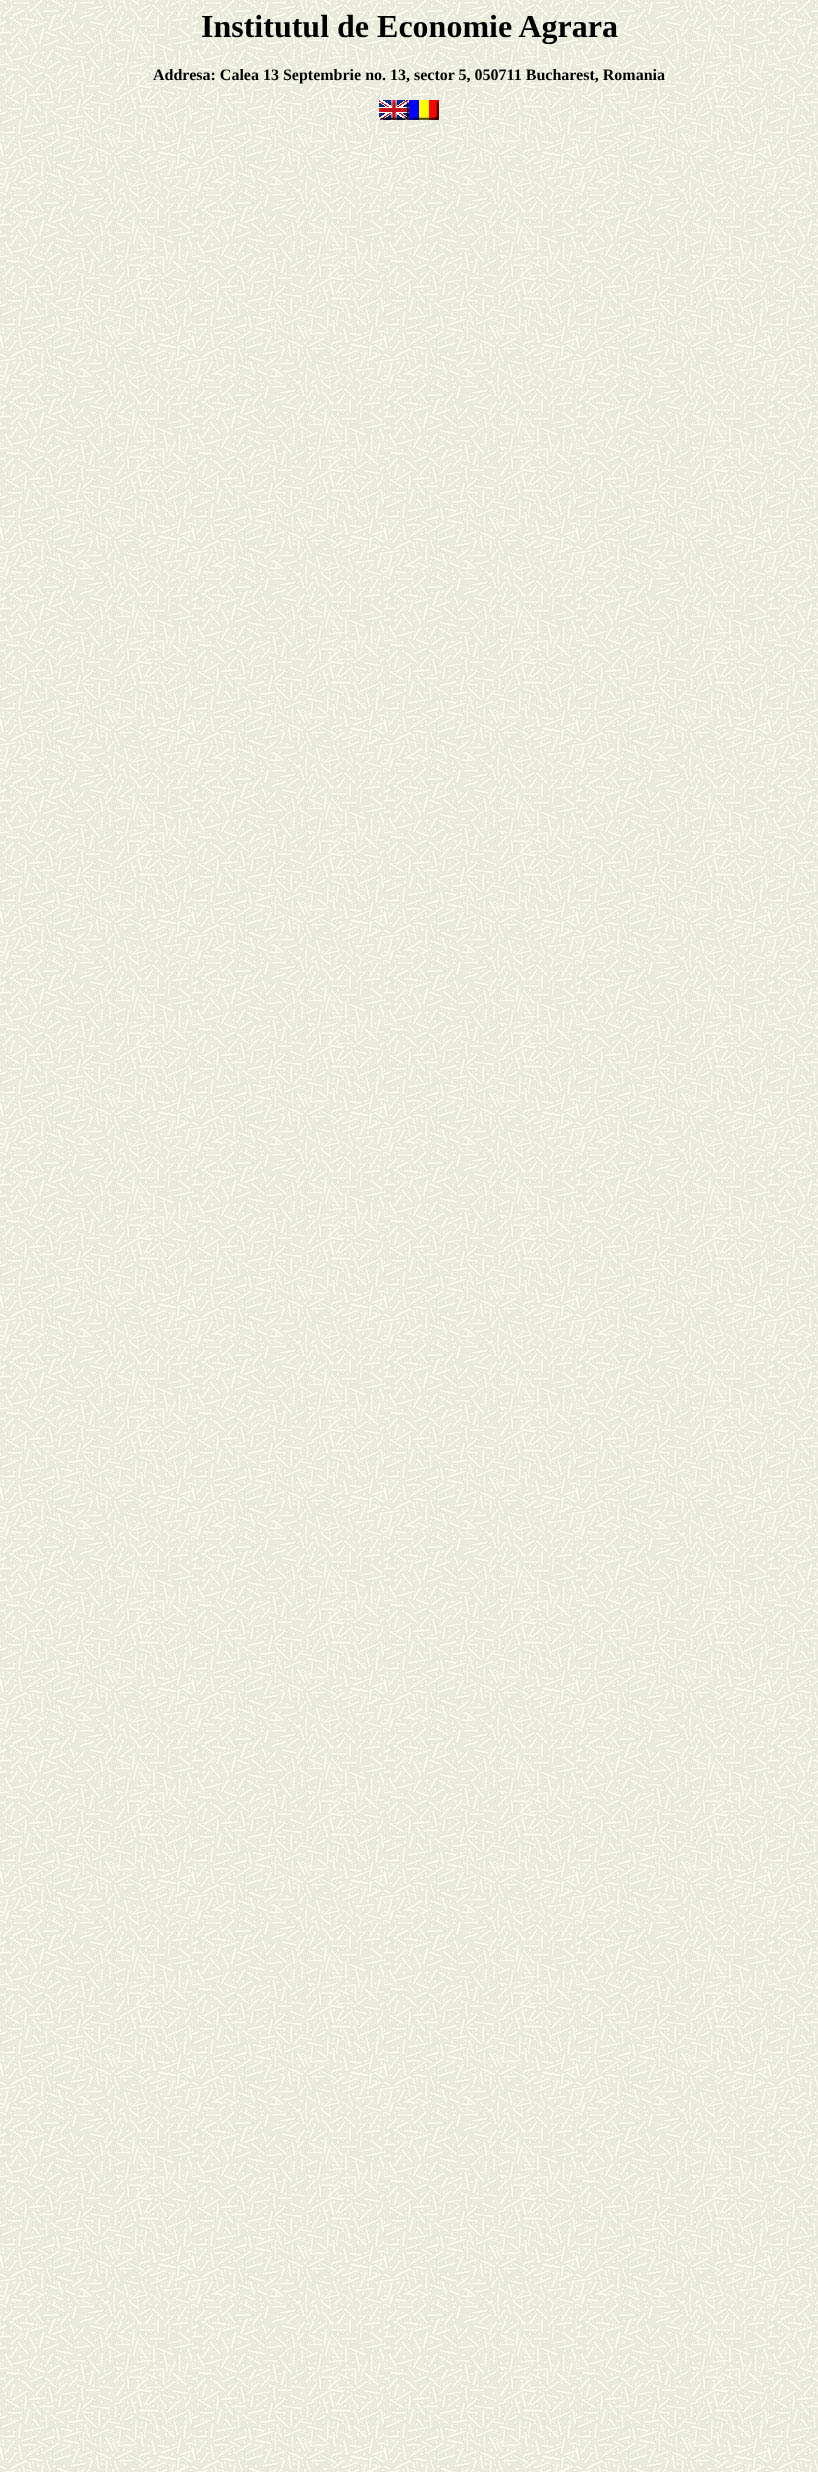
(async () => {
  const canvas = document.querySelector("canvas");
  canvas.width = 818;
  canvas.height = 2472;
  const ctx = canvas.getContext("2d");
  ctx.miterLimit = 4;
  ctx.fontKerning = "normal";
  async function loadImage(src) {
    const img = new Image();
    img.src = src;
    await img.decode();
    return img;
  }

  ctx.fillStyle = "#ffffff";
  ctx.fillRect(0, 0, 818, 2472);
  ctx.drawImage(await loadImage("img/1.png"), 0, 0, 818, 2472);
  ctx.drawImage(await loadImage("img/2.png"), 379, 100, 30, 20);
  ctx.drawImage(await loadImage("img/3.png"), 409, 100, 30, 20);
  ctx.font = "bold 32px Liberation Serif";
  ctx.fillStyle = "#000000";
  ctx.fillText("Institutul de Economie Agrara", 201, 37);
  ctx.font = "bold 16px Liberation Serif";
  ctx.fillText("Addresa: Calea 13 Septembrie no. 13, sector 5, 050711 Bucharest, Romania", 153, 80);
})();
